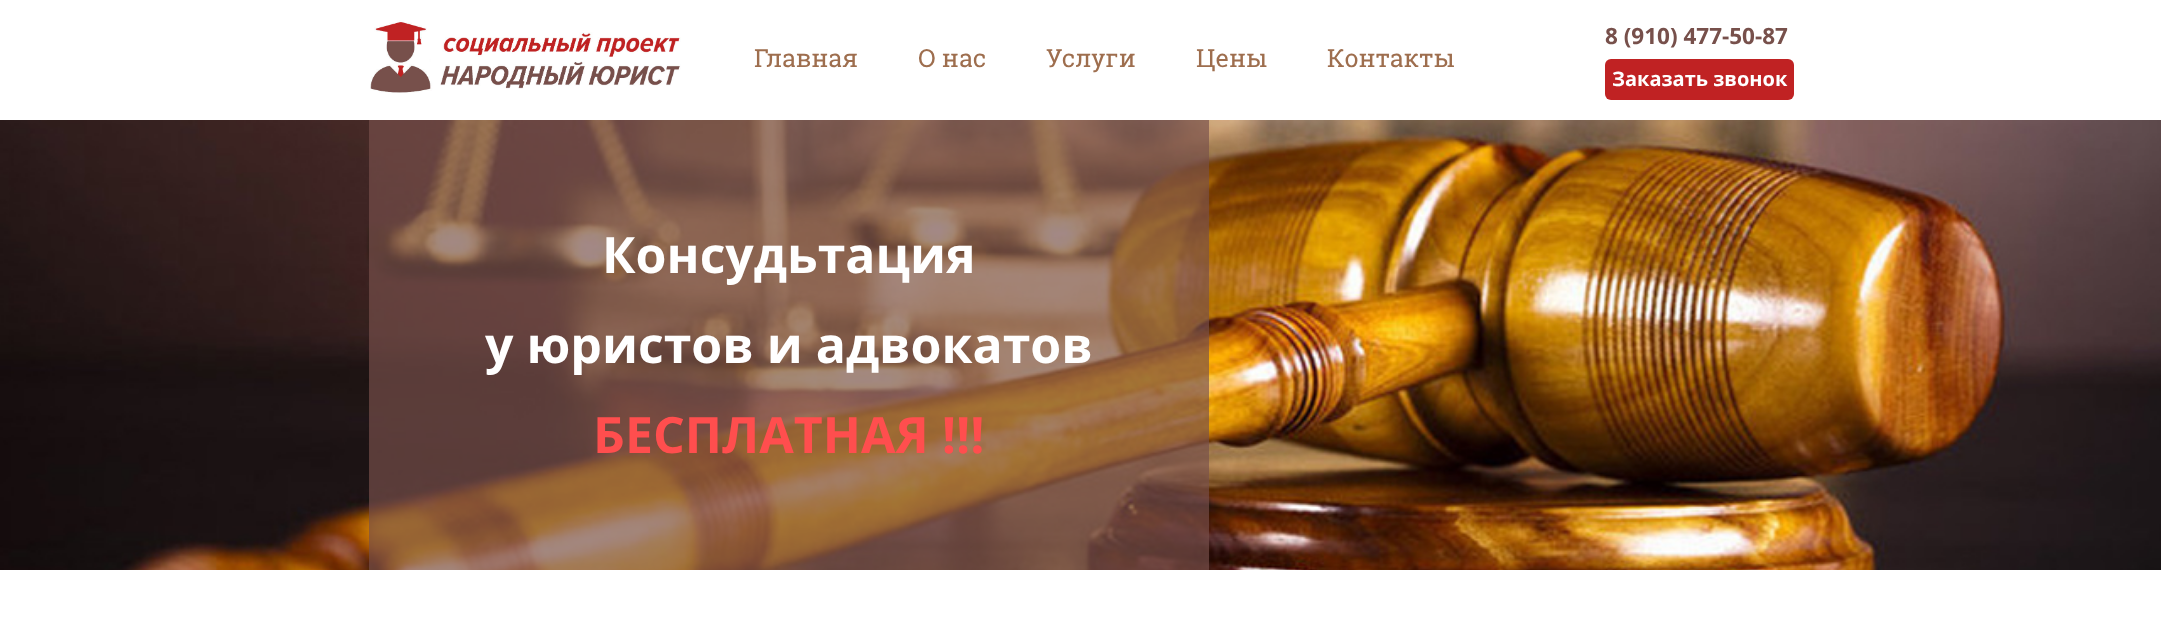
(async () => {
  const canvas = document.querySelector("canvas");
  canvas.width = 2161;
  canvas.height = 626;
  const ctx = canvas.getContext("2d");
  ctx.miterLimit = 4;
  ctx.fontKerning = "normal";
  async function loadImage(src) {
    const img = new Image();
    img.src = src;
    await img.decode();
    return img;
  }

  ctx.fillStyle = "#ffffff";
  ctx.fillRect(0, 0, 2161, 626);
  ctx.drawImage(await loadImage("img/1.png"), 370, 20, 311, 73);
  ctx.fillStyle = "#c02223";
  ctx.beginPath();
  ctx.roundRect(1605, 59, 189, 41, 6);
  ctx.fill();
  ctx.drawImage(await loadImage("img/2.png"), 0, 120, 2161, 450);
  ctx.fillStyle = "rgba(119, 79, 75, 0.68)";
  ctx.fillRect(369, 120, 840, 450);
  ctx.font = "25px Roboto Slab";
  ctx.fillStyle = "#9e6e4e";
  for (const [text, x, y] of [
    ["Главная", 754, 67],
    ["О нас", 918, 67],
    ["Услуги", 1046, 67],
    ["Цены", 1196, 67],
    ["Контакты", 1327, 67],
  ]) {
    ctx.fillText(text, x, y);
  }
  ctx.font = "bold 22.5px Open Sans";
  ctx.fillStyle = "#77504b";
  ctx.fillText("8 (910) 477-50-87", 1605, 44);
  ctx.font = "bold 20px Open Sans";
  ctx.fillStyle = "#ffffff";
  ctx.fillText("Заказать звонок", 1612, 86);
  ctx.font = "bold 50px Open Sans";
  ctx.fillText("Консудьтация", 602, 273);
  ctx.fillText("у юристов и адвокатов", 485, 363);
  ctx.fillStyle = "#ff4e4e";
  ctx.fillText("БЕСПЛАТНАЯ !!!", 593, 453);
})();
